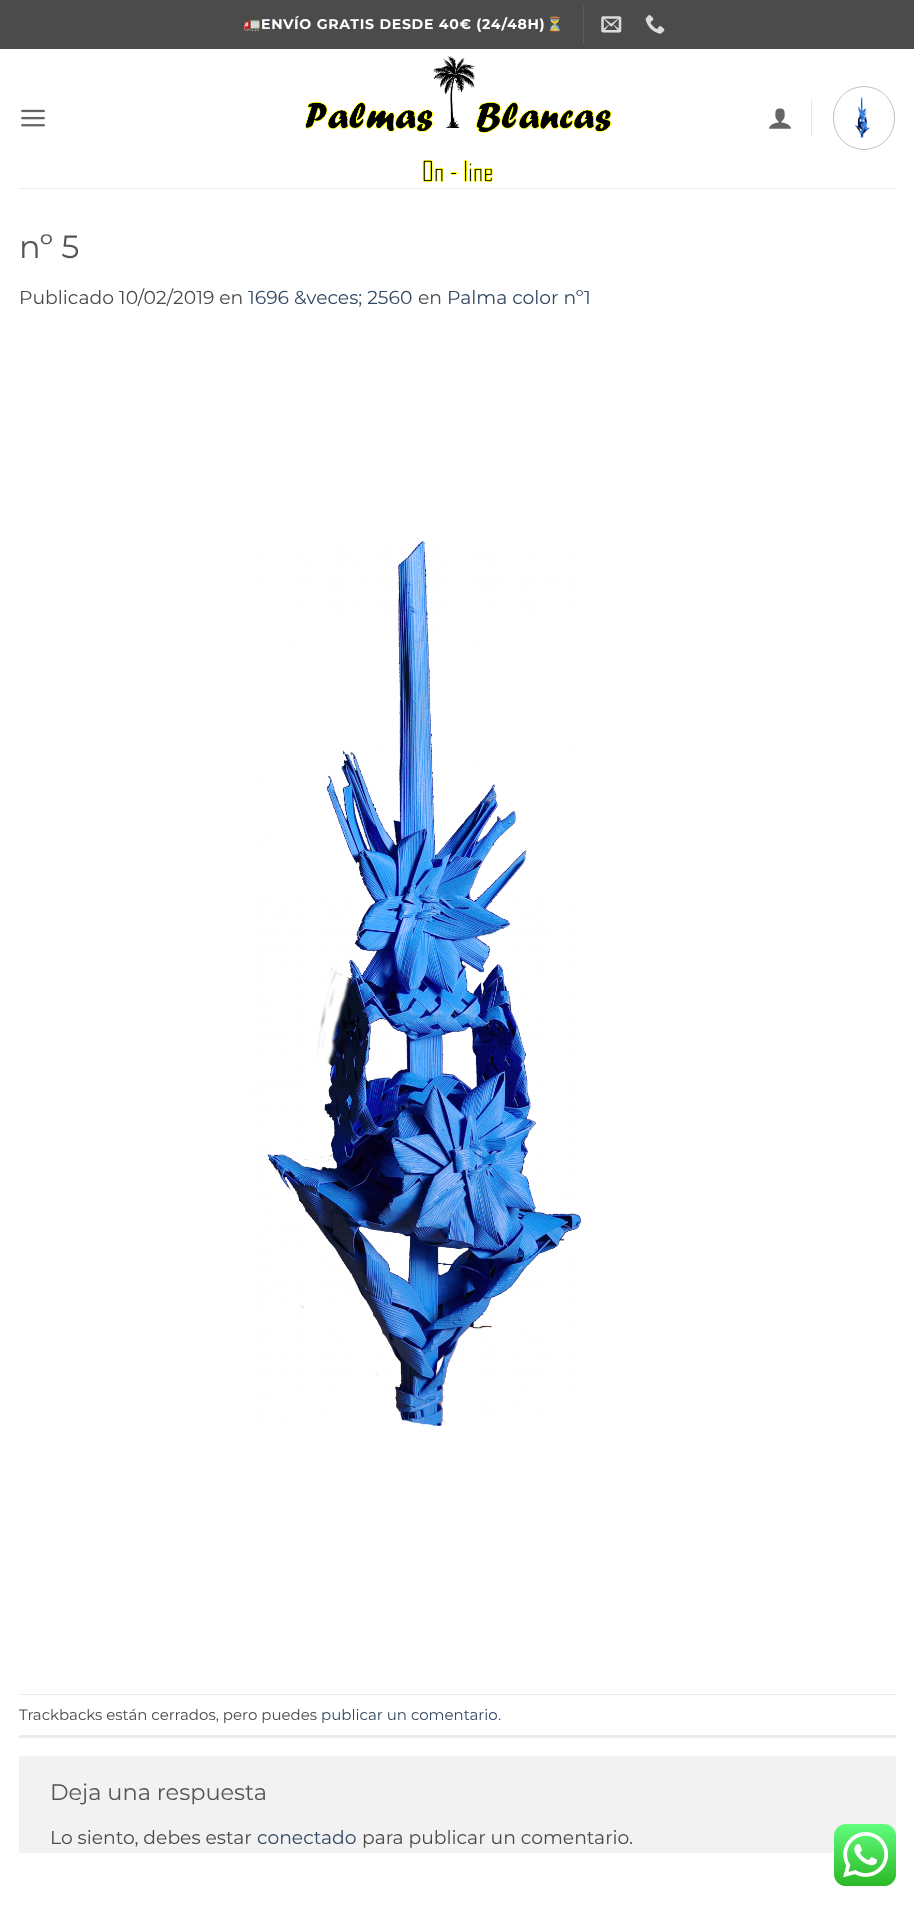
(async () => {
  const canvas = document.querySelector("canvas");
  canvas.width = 914;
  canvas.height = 1905;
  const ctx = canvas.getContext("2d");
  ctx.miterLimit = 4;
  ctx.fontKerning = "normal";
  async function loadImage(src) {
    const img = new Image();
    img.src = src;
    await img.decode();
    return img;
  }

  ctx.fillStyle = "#ffffff";
  ctx.fillRect(0, 0, 914, 1905);
  ctx.fillStyle = "#4b4b4b";
  ctx.fillRect(0, 0, 914, 49);
  ctx.fillStyle = "#5d5d5d";
  ctx.fillRect(583, 6, 1, 38);
  ctx.drawImage(await loadImage("img/1.png"), 601, 16, 21, 17);
  ctx.drawImage(await loadImage("img/2.png"), 645, 15, 20, 19);
  ctx.drawImage(await loadImage("img/3.png"), 21, 109, 24, 18);
  ctx.drawImage(await loadImage("img/4.png"), 304, 56, 308, 126);
  ctx.drawImage(await loadImage("img/5.png"), 769, 108, 22, 21);
  ctx.fillStyle = "#e6e6e6";
  ctx.fillRect(811, 99, 1, 37);
  ctx.beginPath();
  ctx.roundRect(833.5, 86.5, 61, 63, 30.5);
  ctx.strokeStyle = "#c0c0c0";
  ctx.stroke();
  ctx.drawImage(await loadImage("img/6.png"), 855, 96, 15, 42);
  ctx.fillStyle = "#ededed";
  ctx.fillRect(19, 188, 877, 1);
  ctx.drawImage(await loadImage("img/7.png"), 252, 541, 329, 885);
  for (const [x, y, w, h, color] of [
    [19, 1694, 877, 1, "#ececec"],
    [19, 1735, 877, 3, "#ececec"],
    [19, 1756, 877, 97, "#f2f2f2"],
  ]) {
    ctx.fillStyle = color;
    ctx.fillRect(x, y, w, h);
  }
  ctx.drawImage(await loadImage("img/8.png"), 834, 1824, 62, 62);
  ctx.letterSpacing = "0.7px";
  ctx.font = "bold 14.1px Noto Color Emoji";
  ctx.fillStyle = "#ffffff";
  ctx.fillText("🚛", 243, 29);
  ctx.font = "bold 14.1px Montserrat";
  ctx.fillText("ENVÍO GRATIS DESDE 40€ (24/48H)", 261, 29);
  ctx.font = "bold 14.1px Noto Color Emoji";
  ctx.fillText("⏳", 546, 29);
  ctx.letterSpacing = "0px";
  ctx.font = "32px Montserrat";
  ctx.fillStyle = "#555555";
  ctx.fillText("nº 5", 19, 258);
  ctx.font = "18.75px Montserrat";
  ctx.fillStyle = "#4a4a4a";
  ctx.fillText("Publicado 10/02/2019 en", 19, 304);
  ctx.fillStyle = "#334862";
  ctx.fillText("1696 &veces; 2560", 248, 304);
  ctx.fillStyle = "#4a4a4a";
  ctx.fillText("en", 418, 304);
  ctx.fillStyle = "#334862";
  ctx.fillText("Palma color nº1", 447, 304);
  ctx.font = "15px Montserrat";
  ctx.fillStyle = "#4a4a4a";
  ctx.fillText("Trackbacks están cerrados, pero puedes", 19, 1720);
  ctx.fillStyle = "#334862";
  ctx.fillText("publicar un comentario", 321, 1720);
  ctx.fillStyle = "#4a4a4a";
  ctx.fillText(".", 498, 1720);
  ctx.font = "22.5px Montserrat";
  ctx.fillStyle = "#555555";
  ctx.fillText("Deja una respuesta", 50, 1800);
  ctx.font = "18.75px Montserrat";
  ctx.fillStyle = "#4a4a4a";
  ctx.fillText("Lo siento, debes estar", 50, 1844);
  ctx.fillStyle = "#334862";
  ctx.fillText("conectado", 257, 1844);
  ctx.fillStyle = "#4a4a4a";
  ctx.fillText("para publicar un comentario.", 362, 1844);
})();
